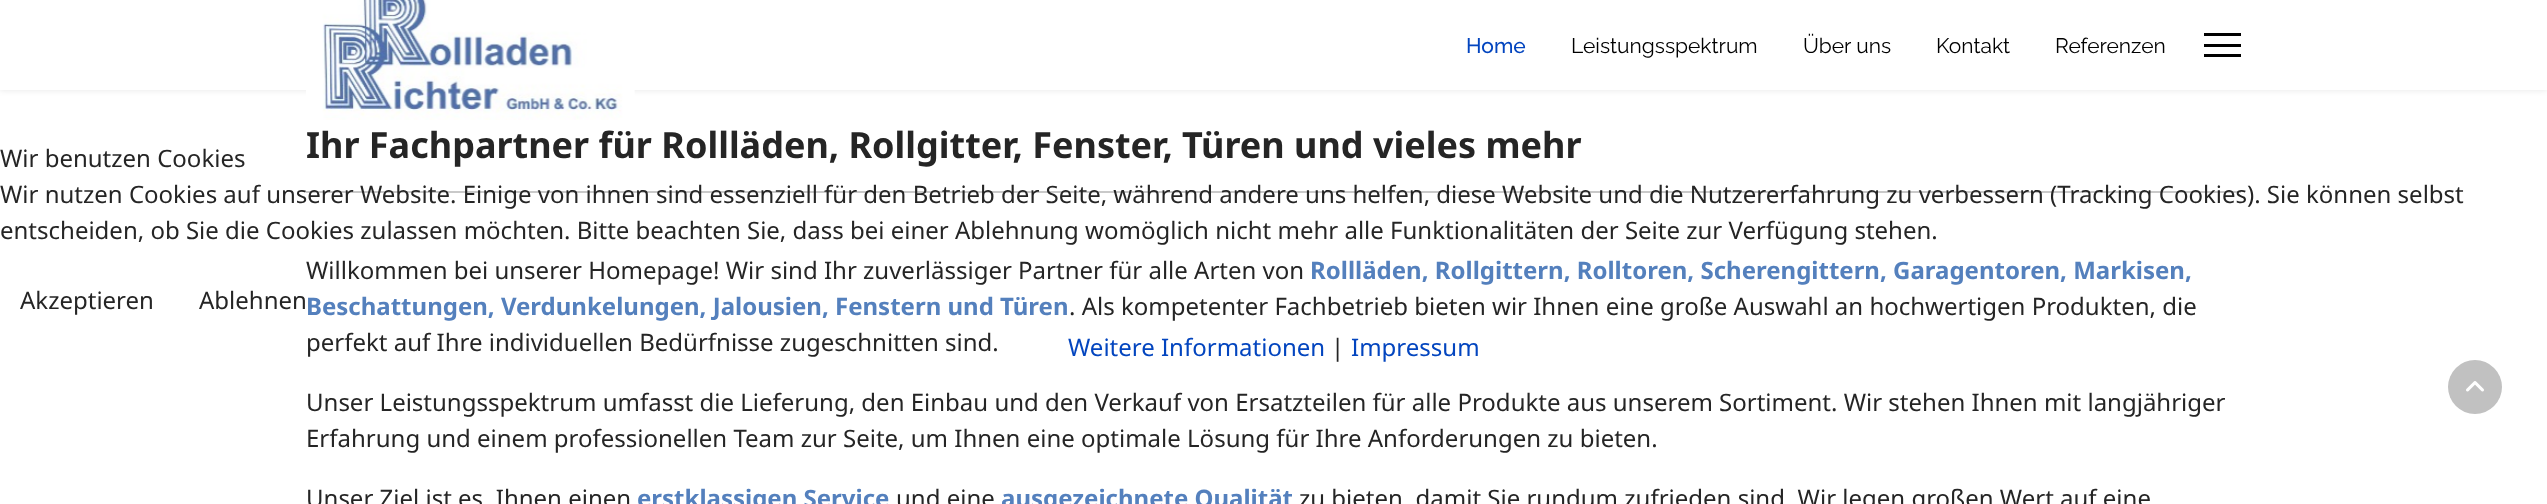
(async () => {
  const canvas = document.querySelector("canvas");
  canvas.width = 2547;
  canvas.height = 504;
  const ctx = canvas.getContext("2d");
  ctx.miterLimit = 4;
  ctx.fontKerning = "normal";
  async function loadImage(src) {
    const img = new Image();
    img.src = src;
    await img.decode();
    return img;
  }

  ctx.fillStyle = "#ffffff";
  ctx.fillRect(0, 0, 2547, 504);
  ctx.fillStyle = "rgba(0, 0, 0, 0.1)";
  ctx.filter = "blur(3px)";
  ctx.beginPath();
  ctx.rect(0, 0, 2547, 90);
  ctx.fill();
  ctx.filter = "none";
  ctx.fillStyle = "#ffffff";
  ctx.fillRect(0, 0, 2547, 90);
  ctx.drawImage(await loadImage("img/1.png"), 306, 0, 329, 120);
  for (const [x, y, w, h, color] of [
    [2204, 33, 37, 3, "#000000"],
    [2204, 44, 37, 3, "#000000"],
    [2204, 54, 37, 3, "#000000"],
    [306, 191, 1935, 2, "#c9c9c9"],
  ]) {
    ctx.fillStyle = color;
    ctx.fillRect(x, y, w, h);
  }
  ctx.fillStyle = "#c1c1c1";
  ctx.beginPath();
  ctx.arc(2475, 387, 27, 0, Math.PI * 2);
  ctx.fill();
  ctx.drawImage(await loadImage("img/2.png"), 2466, 381, 18, 11);
  ctx.font = "500 21px Raleway";
  ctx.fillStyle = "#0345bf";
  ctx.fillText("Home", 1466, 53);
  ctx.font = "21px Raleway";
  ctx.fillStyle = "#000000";
  for (const [text, x, y] of [
    ["Leistungsspektrum", 1571, 53],
    ["Über uns", 1803, 53],
    ["Kontakt", 1936, 53],
    ["Referenzen", 2055, 53],
  ]) {
    ctx.fillText(text, x, y);
  }
  ctx.font = "bold 36px Noto Sans";
  ctx.fillStyle = "#252525";
  ctx.fillText("Ihr Fachpartner für Rollläden, Rollgitter, Fenster, Türen und vieles mehr", 306, 158);
  ctx.font = "24px Noto Sans";
  ctx.fillText("Willkommen bei unserer Homepage! Wir sind Ihr zuverlässiger Partner für alle Arten von", 306, 279);
  ctx.font = "bold 24px Noto Sans";
  ctx.fillStyle = "#5480bd";
  ctx.fillText("Rollläden, Rollgittern, Rolltoren, Scherengittern, Garagentoren, Markisen,", 1310, 279);
  ctx.fillText("Beschattungen, Verdunkelungen, Jalousien, Fenstern und Türen", 306, 315);
  ctx.font = "24px Noto Sans";
  ctx.fillStyle = "#252525";
  for (const [text, x, y] of [
    [". Als kompetenter Fachbetrieb bieten wir Ihnen eine große Auswahl an hochwertigen Produkten, die", 1069, 315],
    ["perfekt auf Ihre individuellen Bedürfnisse zugeschnitten sind.", 306, 351],
    ["Unser Leistungsspektrum umfasst die Lieferung, den Einbau und den Verkauf von Ersatzteilen für alle Produkte aus unserem Sortiment. Wir stehen Ihnen mit langjähriger", 306, 411],
    ["Erfahrung und einem professionellen Team zur Seite, um Ihnen eine optimale Lösung für Ihre Anforderungen zu bieten.", 306, 447],
    ["Unser Ziel ist es, Ihnen einen", 306, 507],
  ]) {
    ctx.fillText(text, x, y);
  }
  ctx.font = "bold 24px Noto Sans";
  ctx.fillStyle = "#5480bd";
  ctx.fillText("erstklassigen Service", 637, 507);
  ctx.font = "24px Noto Sans";
  ctx.fillStyle = "#252525";
  ctx.fillText("und eine", 896, 507);
  ctx.font = "bold 24px Noto Sans";
  ctx.fillStyle = "#5480bd";
  ctx.fillText("ausgezeichnete Qualität", 1001, 507);
  ctx.font = "24px Noto Sans";
  ctx.fillStyle = "#252525";
  for (const [text, x, y] of [
    ["zu bieten, damit Sie rundum zufrieden sind. Wir legen großen Wert auf eine", 1299, 507],
    ["Wir benutzen Cookies", 0, 167],
    ["Wir nutzen Cookies auf unserer Website. Einige von ihnen sind essenziell für den Betrieb der Seite, während andere uns helfen, diese Website und die Nutzererfahrung zu verbessern (Tracking Cookies). Sie können selbst", 0, 203],
    ["entscheiden, ob Sie die Cookies zulassen möchten. Bitte beachten Sie, dass bei einer Ablehnung womöglich nicht mehr alle Funktionalitäten der Seite zur Verfügung stehen.", 0, 239],
    ["Akzeptieren", 20, 309],
    ["Ablehnen", 199, 309],
  ]) {
    ctx.fillText(text, x, y);
  }
  ctx.fillStyle = "#0345bf";
  ctx.fillText("Weitere Informationen", 1068, 356);
  ctx.fillStyle = "#252525";
  ctx.fillText("|", 1331, 356);
  ctx.fillStyle = "#0345bf";
  ctx.fillText("Impressum", 1351, 356);
})();
